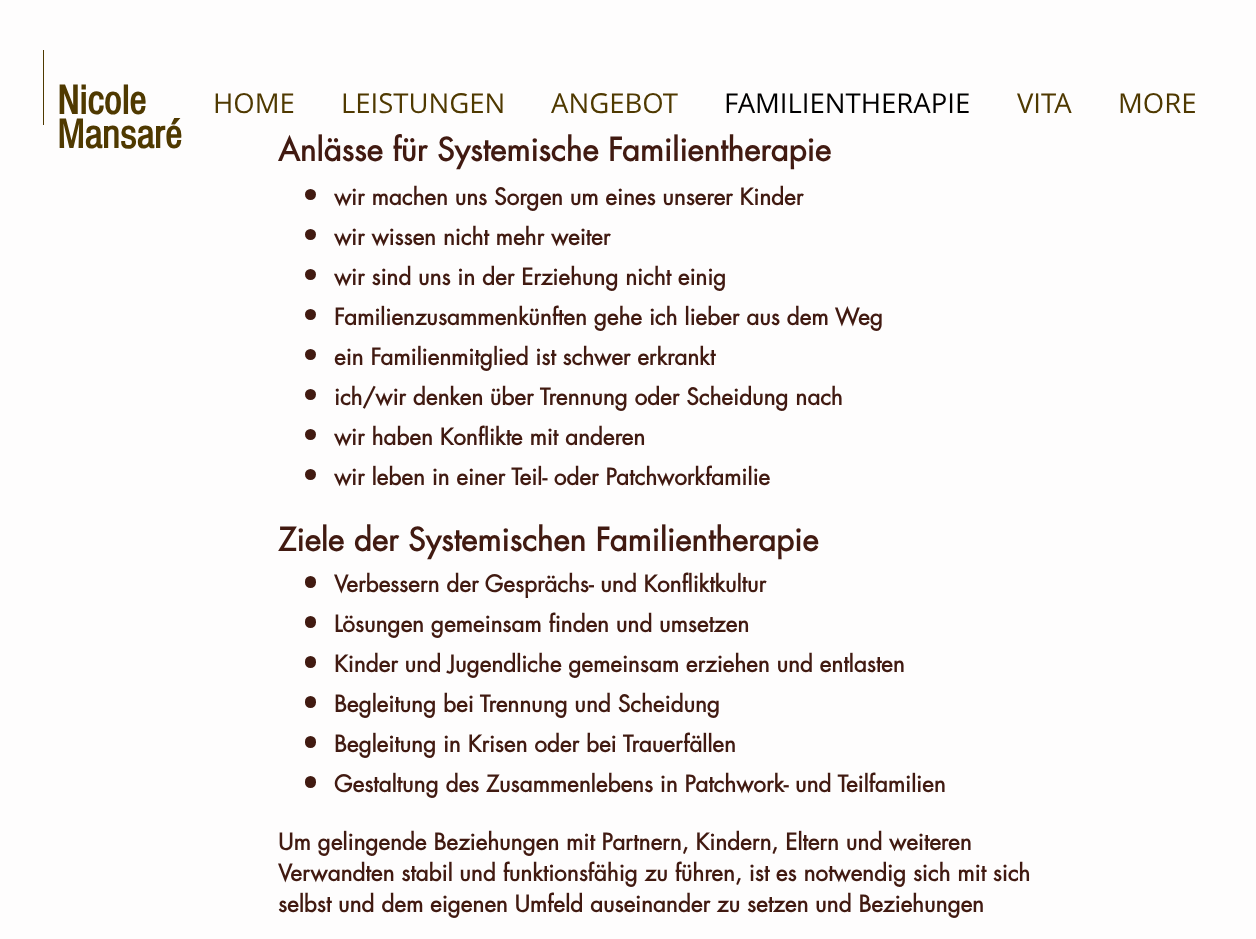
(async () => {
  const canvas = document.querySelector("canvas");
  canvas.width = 1256;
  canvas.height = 939;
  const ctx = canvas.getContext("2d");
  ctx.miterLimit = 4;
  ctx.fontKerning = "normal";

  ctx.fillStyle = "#fefdfd";
  ctx.fillRect(0, 0, 1256, 939);
  ctx.fillStyle = "#4f3900";
  ctx.fillRect(43, 50, 1, 75);
  ctx.fillStyle = "#411a11";
  ctx.beginPath();
  ctx.arc(310.5, 194.5, 5.5, 0, Math.PI * 2);
  ctx.fill();
  ctx.beginPath();
  ctx.arc(310.5, 234.5, 5.5, 0, Math.PI * 2);
  ctx.fill();
  ctx.beginPath();
  ctx.arc(310.5, 274.5, 5.5, 0, Math.PI * 2);
  ctx.fill();
  ctx.beginPath();
  ctx.arc(310.5, 314.5, 5.5, 0, Math.PI * 2);
  ctx.fill();
  ctx.beginPath();
  ctx.arc(310.5, 354.5, 5.5, 0, Math.PI * 2);
  ctx.fill();
  ctx.beginPath();
  ctx.arc(310.5, 394.5, 5.5, 0, Math.PI * 2);
  ctx.fill();
  ctx.beginPath();
  ctx.arc(310.5, 434.5, 5.5, 0, Math.PI * 2);
  ctx.fill();
  ctx.beginPath();
  ctx.arc(310.5, 474.5, 5.5, 0, Math.PI * 2);
  ctx.fill();
  ctx.beginPath();
  ctx.roundRect(305, 576, 11, 12, 5.5);
  ctx.fill();
  ctx.beginPath();
  ctx.roundRect(305, 616, 11, 12, 5.5);
  ctx.fill();
  ctx.beginPath();
  ctx.roundRect(305, 656, 11, 12, 5.5);
  ctx.fill();
  ctx.beginPath();
  ctx.roundRect(305, 696, 11, 12, 5.5);
  ctx.fill();
  ctx.beginPath();
  ctx.roundRect(305, 736, 11, 12, 5.5);
  ctx.fill();
  ctx.beginPath();
  ctx.roundRect(305, 776, 11, 12, 5.5);
  ctx.fill();
  ctx.font = "bold 42.5px 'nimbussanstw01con'";
  ctx.fillStyle = "#4f3900";
  ctx.fillText("Nicole", 57, 114);
  ctx.fillText("Mansaré", 57, 148);
  ctx.font = "27.5px Open Sans";
  for (const [text, x, y] of [
    ["HOME", 213, 113],
    ["LEISTUNGEN", 341, 113],
    ["ANGEBOT", 551, 113],
  ]) {
    ctx.fillText(text, x, y);
  }
  ctx.fillStyle = "#000000";
  ctx.fillText("FAMILIENTHERAPIE", 724, 113);
  ctx.fillStyle = "#4f3900";
  ctx.fillText("VITA", 1017, 113);
  ctx.fillText("MORE", 1118, 113);
  ctx.font = "bold 31.25px futura";
  ctx.fillStyle = "#411a11";
  ctx.fillText("Anlässe für Systemische Familientherapie", 278, 161);
  ctx.font = "bold 22.5px futura";
  for (const [text, x, y] of [
    ["wir machen uns Sorgen um eines unserer Kinder", 334, 205],
    ["wir wissen nicht mehr weiter", 334, 245],
    ["wir sind uns in der Erziehung nicht einig", 334, 285],
    ["Familienzusammenkünften gehe ich lieber aus dem Weg", 334, 325],
    ["ein Familienmitglied ist schwer erkrankt", 334, 365],
    ["ich/wir denken über Trennung oder Scheidung nach", 334, 405],
    ["wir haben Konflikte mit anderen", 334, 445],
    ["wir leben in einer Teil- oder Patchworkfamilie", 334, 485],
  ]) {
    ctx.fillText(text, x, y);
  }
  ctx.font = "bold 31.25px futura";
  ctx.fillText("Ziele der Systemischen Familientherapie", 278, 551);
  ctx.font = "bold 22.5px futura";
  for (const [text, x, y] of [
    ["Verbessern der Gesprächs- und Konfliktkultur", 334, 592],
    ["Lösungen gemeinsam finden und umsetzen", 334, 632],
    ["Kinder und Jugendliche gemeinsam erziehen und entlasten", 334, 672],
    ["Begleitung bei Trennung und Scheidung", 334, 712],
    ["Begleitung in Krisen oder bei Trauerfällen", 334, 752],
    ["Gestaltung des Zusammenlebens in Patchwork- und Teilfamilien", 334, 792],
    ["Um gelingende Beziehungen mit Partnern, Kindern, Eltern und weiteren", 278, 850],
    ["Verwandten stabil und funktionsfähig zu führen, ist es notwendig sich mit sich", 278, 881],
    ["selbst und dem eigenen Umfeld auseinander zu setzen und Beziehungen", 278, 912],
  ]) {
    ctx.fillText(text, x, y);
  }
})();
